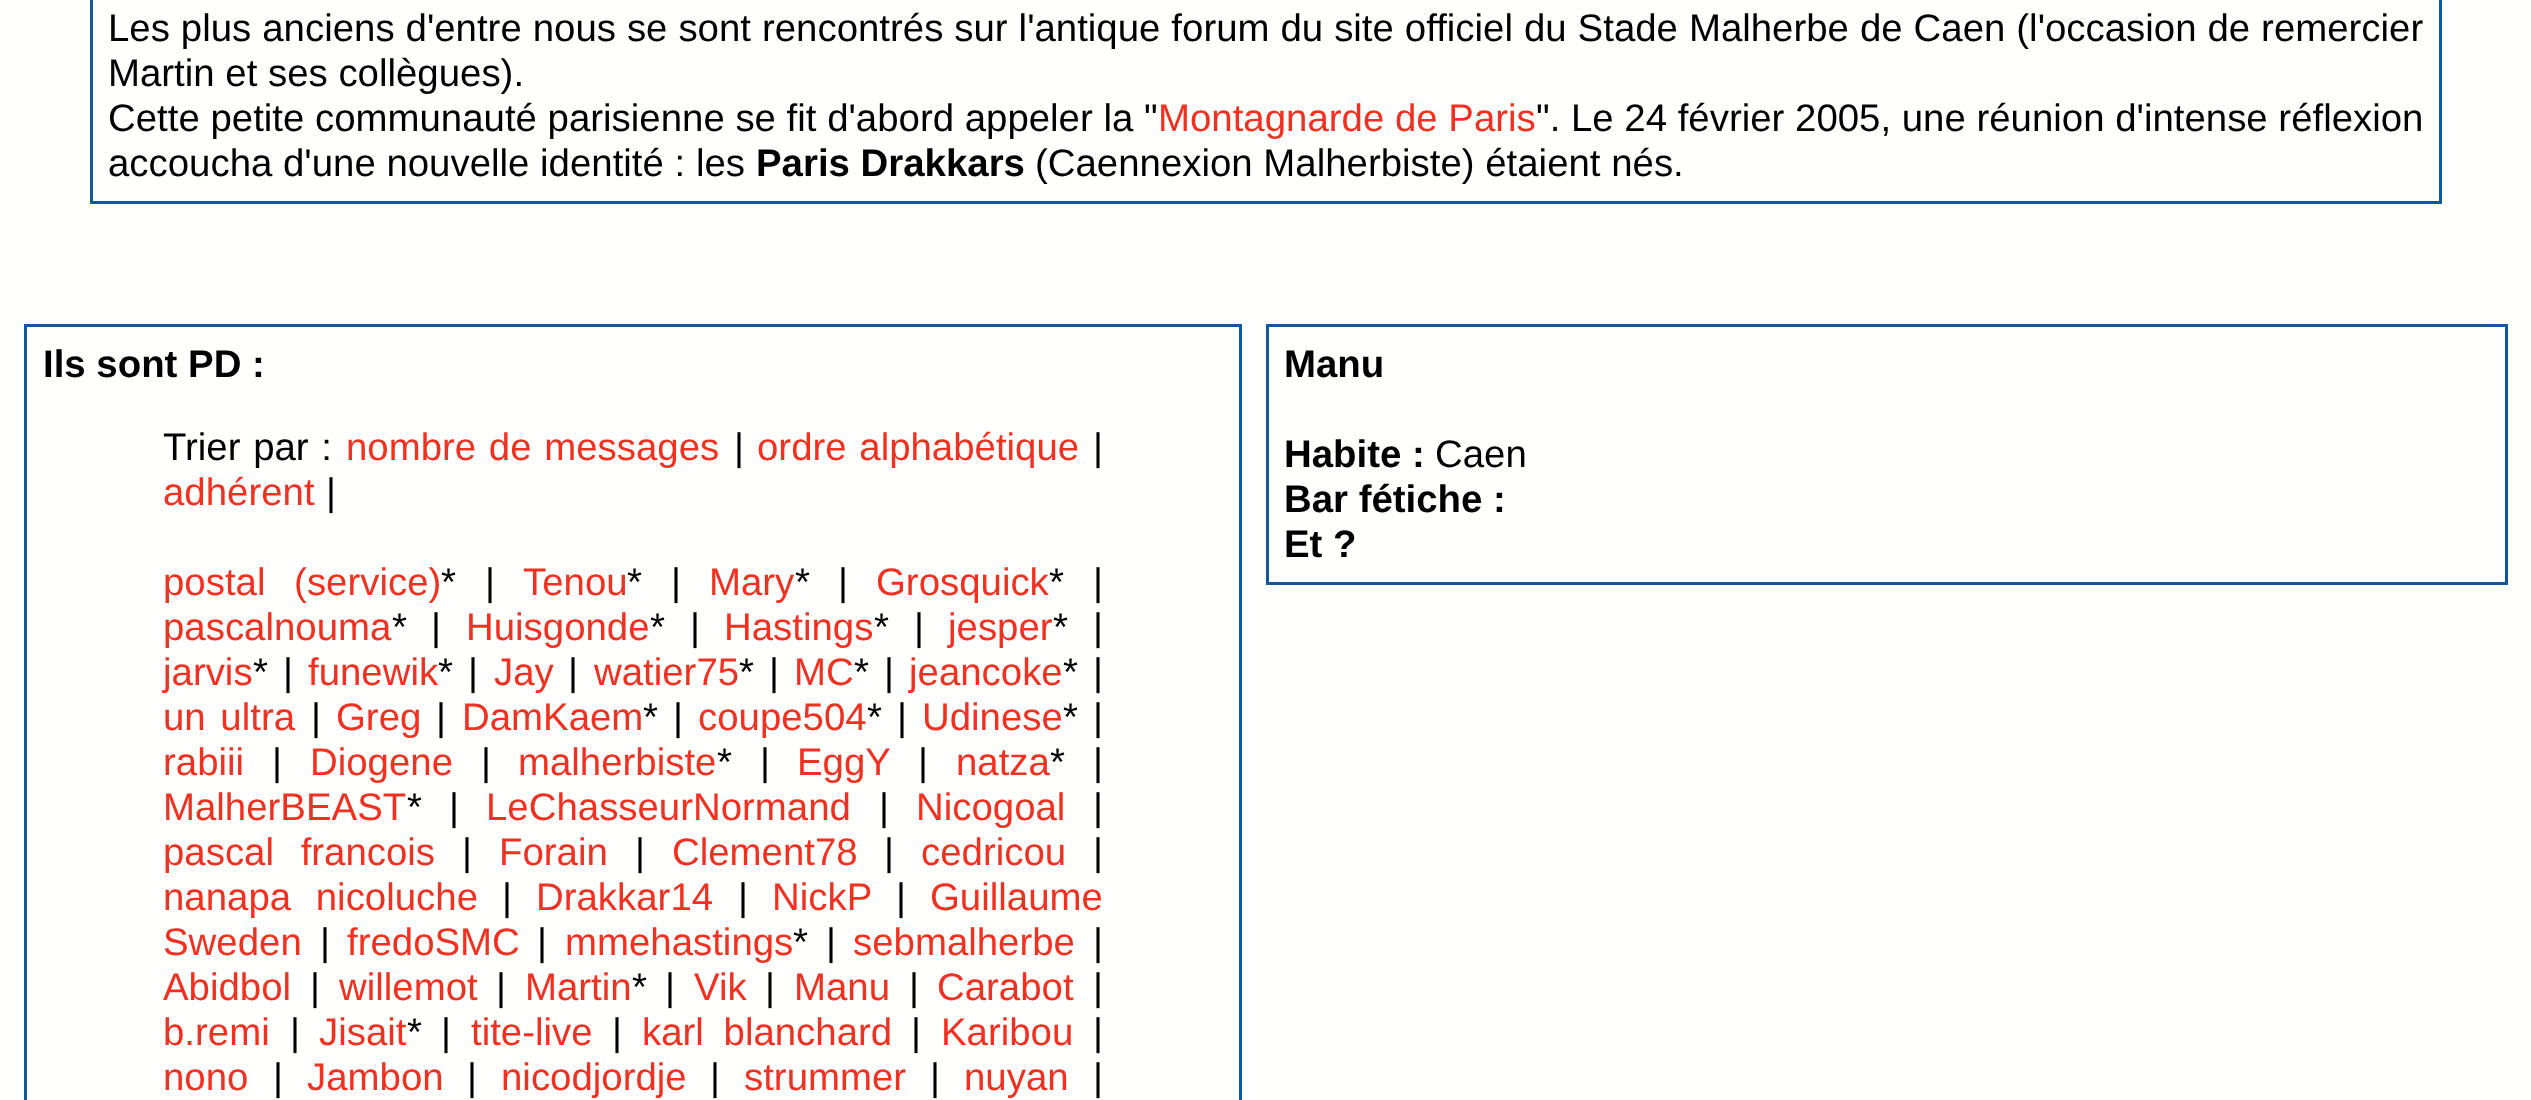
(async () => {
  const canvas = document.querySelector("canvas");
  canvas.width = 2531;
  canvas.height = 1100;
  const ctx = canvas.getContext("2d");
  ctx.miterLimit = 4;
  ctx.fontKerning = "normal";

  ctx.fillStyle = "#fffffd";
  ctx.fillRect(0, 0, 2531, 1100);
  ctx.strokeStyle = "#115799";
  ctx.lineWidth = 3;
  ctx.strokeRect(91.5, -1.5, 2349, 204);
  ctx.strokeRect(25.5, 325.5, 1215, 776);
  ctx.strokeRect(1267.5, 325.5, 1239, 258);
  ctx.wordSpacing = "0.3px";
  ctx.font = "38.4px Liberation Sans";
  ctx.fillStyle = "#000000";
  ctx.fillText("Les plus anciens d'entre nous se sont rencontrés sur l'antique forum du site officiel du Stade Malherbe de Caen (l'occasion de remercier", 108, 41);
  ctx.wordSpacing = "0px";
  ctx.fillText("Martin et ses collègues).", 108, 86);
  ctx.fillText("Cette petite communauté parisienne se fit d'abord appeler la \"", 108, 131);
  ctx.fillStyle = "#f03021";
  ctx.fillText("Montagnarde de Paris", 1158, 131);
  ctx.fillStyle = "#000000";
  ctx.fillText("\". Le 24 février 2005, une réunion d'intense réflexion", 1536, 131);
  ctx.fillText("accoucha d'une nouvelle identité : les", 108, 176);
  ctx.font = "bold 38.4px Liberation Sans";
  ctx.fillText("Paris Drakkars", 756, 176);
  ctx.font = "38.4px Liberation Sans";
  ctx.fillText("(Caennexion Malherbiste) étaient nés.", 1035, 176);
  ctx.font = "bold 38.4px Liberation Sans";
  ctx.fillText("Ils sont PD :", 43, 377);
  ctx.wordSpacing = "2px";
  ctx.font = "38.4px Liberation Sans";
  ctx.fillText("Trier par :", 163, 460);
  ctx.fillStyle = "#f03021";
  ctx.fillText("nombre de messages", 346, 460);
  ctx.wordSpacing = "0px";
  ctx.fillStyle = "#000000";
  ctx.fillText("|", 734, 460);
  ctx.wordSpacing = "2px";
  ctx.fillStyle = "#f03021";
  ctx.fillText("ordre alphabétique", 757, 460);
  ctx.wordSpacing = "0px";
  ctx.fillStyle = "#000000";
  ctx.fillText("|", 1093, 460);
  ctx.fillStyle = "#f03021";
  ctx.fillText("adhérent", 163, 505);
  ctx.fillStyle = "#000000";
  ctx.fillText("|", 326, 505);
  ctx.wordSpacing = "18px";
  ctx.fillStyle = "#f03021";
  ctx.fillText("postal (service)", 163, 595);
  ctx.wordSpacing = "0px";
  ctx.fillStyle = "#000000";
  ctx.fillText("*", 441, 595);
  ctx.fillText("|", 485, 595);
  ctx.fillStyle = "#f03021";
  ctx.fillText("Tenou", 523, 595);
  ctx.fillStyle = "#000000";
  ctx.fillText("*", 627, 595);
  ctx.fillText("|", 671, 595);
  ctx.fillStyle = "#f03021";
  ctx.fillText("Mary", 709, 595);
  ctx.fillStyle = "#000000";
  ctx.fillText("*", 795, 595);
  ctx.fillText("|", 838, 595);
  ctx.fillStyle = "#f03021";
  ctx.fillText("Grosquick", 876, 595);
  ctx.fillStyle = "#000000";
  ctx.fillText("*", 1049, 595);
  ctx.fillText("|", 1093, 595);
  ctx.fillStyle = "#f03021";
  ctx.fillText("pascalnouma", 163, 640);
  ctx.fillStyle = "#000000";
  ctx.fillText("*", 392, 640);
  ctx.fillText("|", 431, 640);
  ctx.fillStyle = "#f03021";
  ctx.fillText("Huisgonde", 466, 640);
  ctx.fillStyle = "#000000";
  ctx.fillText("*", 650, 640);
  ctx.fillText("|", 690, 640);
  ctx.fillStyle = "#f03021";
  ctx.fillText("Hastings", 724, 640);
  ctx.fillStyle = "#000000";
  ctx.fillText("*", 874, 640);
  ctx.fillText("|", 914, 640);
  ctx.fillStyle = "#f03021";
  ctx.fillText("jesper", 948, 640);
  ctx.fillStyle = "#000000";
  ctx.fillText("*", 1053, 640);
  ctx.fillText("|", 1093, 640);
  ctx.fillStyle = "#f03021";
  ctx.fillText("jarvis", 163, 685);
  ctx.fillStyle = "#000000";
  ctx.fillText("*", 253, 685);
  ctx.fillText("|", 283, 685);
  ctx.fillStyle = "#f03021";
  ctx.fillText("funewik", 308, 685);
  ctx.fillStyle = "#000000";
  ctx.fillText("*", 438, 685);
  ctx.fillText("|", 468, 685);
  ctx.fillStyle = "#f03021";
  ctx.fillText("Jay", 494, 685);
  ctx.fillStyle = "#000000";
  ctx.fillText("|", 568, 685);
  ctx.fillStyle = "#f03021";
  ctx.fillText("watier75", 594, 685);
  ctx.fillStyle = "#000000";
  ctx.fillText("*", 739, 685);
  ctx.fillText("|", 769, 685);
  ctx.fillStyle = "#f03021";
  ctx.fillText("MC", 794, 685);
  ctx.fillStyle = "#000000";
  ctx.fillText("*", 854, 685);
  ctx.fillText("|", 884, 685);
  ctx.fillStyle = "#f03021";
  ctx.fillText("jeancoke", 909, 685);
  ctx.fillStyle = "#000000";
  ctx.fillText("*", 1063, 685);
  ctx.fillText("|", 1093, 685);
  ctx.wordSpacing = "4px";
  ctx.fillStyle = "#f03021";
  ctx.fillText("un ultra", 163, 730);
  ctx.wordSpacing = "0px";
  ctx.fillStyle = "#000000";
  ctx.fillText("|", 311, 730);
  ctx.fillStyle = "#f03021";
  ctx.fillText("Greg", 336, 730);
  ctx.fillStyle = "#000000";
  ctx.fillText("|", 436, 730);
  ctx.fillStyle = "#f03021";
  ctx.fillText("DamKaem", 462, 730);
  ctx.fillStyle = "#000000";
  ctx.fillText("*", 643, 730);
  ctx.fillText("|", 673, 730);
  ctx.fillStyle = "#f03021";
  ctx.fillText("coupe504", 698, 730);
  ctx.fillStyle = "#000000";
  ctx.fillText("*", 867, 730);
  ctx.fillText("|", 897, 730);
  ctx.fillStyle = "#f03021";
  ctx.fillText("Udinese", 922, 730);
  ctx.fillStyle = "#000000";
  ctx.fillText("*", 1063, 730);
  ctx.fillText("|", 1093, 730);
  ctx.fillStyle = "#f03021";
  ctx.fillText("rabiii", 163, 775);
  ctx.fillStyle = "#000000";
  ctx.fillText("|", 272, 775);
  ctx.fillStyle = "#f03021";
  ctx.fillText("Diogene", 310, 775);
  ctx.fillStyle = "#000000";
  ctx.fillText("|", 481, 775);
  ctx.fillStyle = "#f03021";
  ctx.fillText("malherbiste", 518, 775);
  ctx.fillStyle = "#000000";
  ctx.fillText("*", 717, 775);
  ctx.fillText("|", 760, 775);
  ctx.fillStyle = "#f03021";
  ctx.fillText("EggY", 797, 775);
  ctx.fillStyle = "#000000";
  ctx.fillText("|", 918, 775);
  ctx.fillStyle = "#f03021";
  ctx.fillText("natza", 956, 775);
  ctx.fillStyle = "#000000";
  ctx.fillText("*", 1050, 775);
  ctx.fillText("|", 1093, 775);
  ctx.fillStyle = "#f03021";
  ctx.fillText("MalherBEAST", 163, 820);
  ctx.fillStyle = "#000000";
  ctx.fillText("*", 407, 820);
  ctx.fillText("|", 449, 820);
  ctx.fillStyle = "#f03021";
  ctx.fillText("LeChasseurNormand", 486, 820);
  ctx.fillStyle = "#000000";
  ctx.fillText("|", 879, 820);
  ctx.fillStyle = "#f03021";
  ctx.fillText("Nicogoal", 916, 820);
  ctx.fillStyle = "#000000";
  ctx.fillText("|", 1093, 820);
  ctx.wordSpacing = "16px";
  ctx.fillStyle = "#f03021";
  ctx.fillText("pascal francois", 163, 865);
  ctx.wordSpacing = "0px";
  ctx.fillStyle = "#000000";
  ctx.fillText("|", 462, 865);
  ctx.fillStyle = "#f03021";
  ctx.fillText("Forain", 499, 865);
  ctx.fillStyle = "#000000";
  ctx.fillText("|", 635, 865);
  ctx.fillStyle = "#f03021";
  ctx.fillText("Clement78", 672, 865);
  ctx.fillStyle = "#000000";
  ctx.fillText("|", 884, 865);
  ctx.fillStyle = "#f03021";
  ctx.fillText("cedricou", 921, 865);
  ctx.fillStyle = "#000000";
  ctx.fillText("|", 1093, 865);
  ctx.wordSpacing = "14px";
  ctx.fillStyle = "#f03021";
  ctx.fillText("nanapa nicoluche", 163, 910);
  ctx.wordSpacing = "0px";
  ctx.fillStyle = "#000000";
  ctx.fillText("|", 502, 910);
  ctx.fillStyle = "#f03021";
  ctx.fillText("Drakkar14", 536, 910);
  ctx.fillStyle = "#000000";
  ctx.fillText("|", 738, 910);
  ctx.fillStyle = "#f03021";
  ctx.fillText("NickP", 772, 910);
  ctx.fillStyle = "#000000";
  ctx.fillText("|", 896, 910);
  ctx.fillStyle = "#f03021";
  ctx.fillText("Guillaume", 930, 910);
  ctx.fillText("Sweden", 163, 955);
  ctx.fillStyle = "#000000";
  ctx.fillText("|", 320, 955);
  ctx.fillStyle = "#f03021";
  ctx.fillText("fredoSMC", 347, 955);
  ctx.fillStyle = "#000000";
  ctx.fillText("|", 537, 955);
  ctx.fillStyle = "#f03021";
  ctx.fillText("mmehastings", 565, 955);
  ctx.fillStyle = "#000000";
  ctx.fillText("*", 793, 955);
  ctx.fillText("|", 826, 955);
  ctx.fillStyle = "#f03021";
  ctx.fillText("sebmalherbe", 853, 955);
  ctx.fillStyle = "#000000";
  ctx.fillText("|", 1093, 955);
  ctx.fillStyle = "#f03021";
  ctx.fillText("Abidbol", 163, 1000);
  ctx.fillStyle = "#000000";
  ctx.fillText("|", 310, 1000);
  ctx.fillStyle = "#f03021";
  ctx.fillText("willemot", 339, 1000);
  ctx.fillStyle = "#000000";
  ctx.fillText("|", 496, 1000);
  ctx.fillStyle = "#f03021";
  ctx.fillText("Martin", 525, 1000);
  ctx.fillStyle = "#000000";
  ctx.fillText("*", 632, 1000);
  ctx.fillText("|", 665, 1000);
  ctx.fillStyle = "#f03021";
  ctx.fillText("Vik", 694, 1000);
  ctx.fillStyle = "#000000";
  ctx.fillText("|", 765, 1000);
  ctx.fillStyle = "#f03021";
  ctx.fillText("Manu", 794, 1000);
  ctx.fillStyle = "#000000";
  ctx.fillText("|", 909, 1000);
  ctx.fillStyle = "#f03021";
  ctx.fillText("Carabot", 937, 1000);
  ctx.fillStyle = "#000000";
  ctx.fillText("|", 1093, 1000);
  ctx.fillStyle = "#f03021";
  ctx.fillText("b.remi", 163, 1045);
  ctx.fillStyle = "#000000";
  ctx.fillText("|", 290, 1045);
  ctx.fillStyle = "#f03021";
  ctx.fillText("Jisait", 319, 1045);
  ctx.fillStyle = "#000000";
  ctx.fillText("*", 407, 1045);
  ctx.fillText("|", 441, 1045);
  ctx.fillStyle = "#f03021";
  ctx.fillText("tite-live", 471, 1045);
  ctx.fillStyle = "#000000";
  ctx.fillText("|", 612, 1045);
  ctx.wordSpacing = "9px";
  ctx.fillStyle = "#f03021";
  ctx.fillText("karl blanchard", 642, 1045);
  ctx.wordSpacing = "0px";
  ctx.fillStyle = "#000000";
  ctx.fillText("|", 911, 1045);
  ctx.fillStyle = "#f03021";
  ctx.fillText("Karibou", 941, 1045);
  ctx.fillStyle = "#000000";
  ctx.fillText("|", 1093, 1045);
  ctx.fillStyle = "#f03021";
  ctx.fillText("nono", 163, 1090);
  ctx.fillStyle = "#000000";
  ctx.fillText("|", 273, 1090);
  ctx.fillStyle = "#f03021";
  ctx.fillText("Jambon", 307, 1090);
  ctx.fillStyle = "#000000";
  ctx.fillText("|", 467, 1090);
  ctx.fillStyle = "#f03021";
  ctx.fillText("nicodjordje", 501, 1090);
  ctx.fillStyle = "#000000";
  ctx.fillText("|", 710, 1090);
  ctx.fillStyle = "#f03021";
  ctx.fillText("strummer", 744, 1090);
  ctx.fillStyle = "#000000";
  ctx.fillText("|", 930, 1090);
  ctx.fillStyle = "#f03021";
  ctx.fillText("nuyan", 964, 1090);
  ctx.fillStyle = "#000000";
  ctx.fillText("|", 1093, 1090);
  ctx.font = "bold 38.4px Liberation Sans";
  ctx.fillText("Manu", 1284, 377);
  ctx.fillText("Habite :", 1284, 467);
  ctx.font = "38.4px Liberation Sans";
  ctx.fillText("Caen", 1435, 467);
  ctx.font = "bold 38.4px Liberation Sans";
  ctx.fillText("Bar fétiche :", 1284, 512);
  ctx.fillText("Et ?", 1284, 557);
})();
